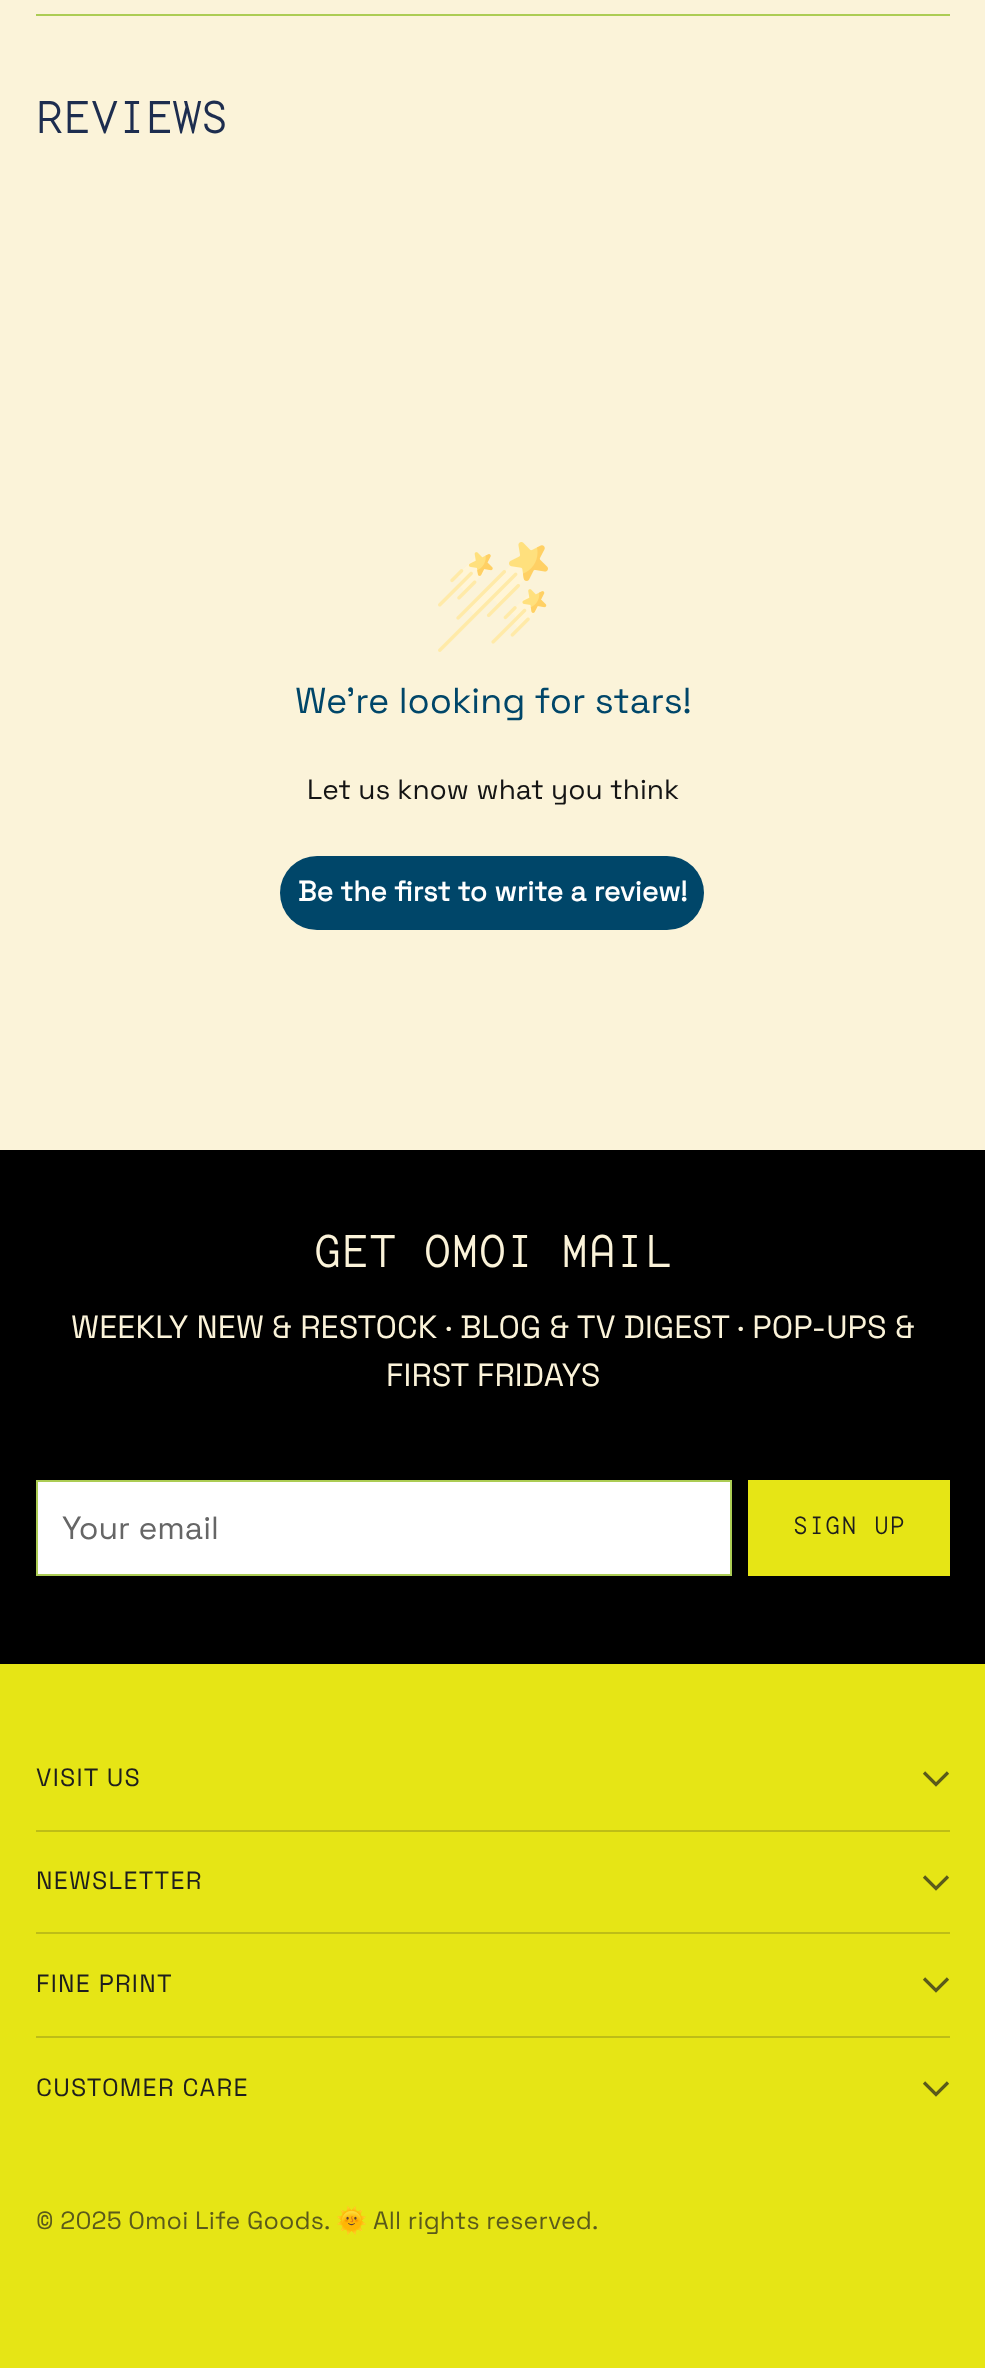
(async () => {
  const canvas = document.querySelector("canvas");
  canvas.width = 985;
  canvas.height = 2368;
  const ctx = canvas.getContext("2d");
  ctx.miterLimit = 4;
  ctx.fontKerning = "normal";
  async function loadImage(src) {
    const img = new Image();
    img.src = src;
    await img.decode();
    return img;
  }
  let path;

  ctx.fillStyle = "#fbf3d9";
  ctx.fillRect(0, 0, 985, 2368);
  ctx.fillStyle = "#accc54";
  ctx.fillRect(36, 14, 914, 2);
  ctx.drawImage(await loadImage("img/1.png"), 438, 542, 110, 110);
  ctx.fillStyle = "#004669";
  ctx.beginPath();
  ctx.roundRect(280, 856, 424, 74, 37);
  ctx.fill();
  ctx.fillStyle = "#000000";
  ctx.fillRect(0, 1150, 985, 514);
  ctx.fillStyle = "#ffffff";
  ctx.beginPath();
  ctx.rect(37, 1481, 694, 94);
  ctx.fill();
  ctx.strokeStyle = "#accc54";
  ctx.lineWidth = 2;
  ctx.stroke();
  ctx.save();
  ctx.beginPath();
  ctx.rect(748, 1480, 202, 96);
  ctx.clip();
  ctx.fillStyle = "#e6e515";
  path = new Path2D("M691 1480H953L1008 1576H746Z");
  ctx.fill(path);
  ctx.restore();
  ctx.fillStyle = "#e6e515";
  ctx.fillRect(0, 1664, 985, 704);
  ctx.fillStyle = "#bebd17";
  ctx.fillRect(36, 1830, 914, 2);
  path = new Path2D("M924 1772.5L936 1784.5L948 1772.5");
  ctx.strokeStyle = "#5a5a1b";
  ctx.lineWidth = 3.2;
  ctx.stroke(path);
  ctx.fillRect(36, 1932, 914, 2);
  path = new Path2D("M924 1876.5L936 1888.5L948 1876.5");
  ctx.stroke(path);
  ctx.fillRect(36, 2036, 914, 2);
  path = new Path2D("M924 1978.5L936 1990.5L948 1978.5");
  ctx.stroke(path);
  path = new Path2D("M924 2082.5L936 2094.5L948 2082.5");
  ctx.stroke(path);
  ctx.font = "100 45.75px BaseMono";
  ctx.fillStyle = "#1d2d4f";
  ctx.fillText("REVIEWS", 36, 133);
  ctx.font = "300 36px Space Grotesk";
  ctx.fillStyle = "#004669";
  ctx.fillText("We’re looking for stars!", 295, 713);
  ctx.font = "300 28px Space Grotesk";
  ctx.fillStyle = "#141414";
  ctx.fillText("Let us know what you think", 307, 799);
  ctx.font = "bold 28px Space Grotesk";
  ctx.fillStyle = "#ffffff";
  ctx.fillText("Be the first to write a review!", 298, 901);
  ctx.font = "100 45.75px BaseMono";
  ctx.fillStyle = "#fbf3d9";
  ctx.fillText("GET OMOI MAIL", 314, 1267);
  ctx.letterSpacing = "0.15px";
  ctx.font = "300 32px Space Grotesk";
  ctx.fillText("WEEKLY NEW & RESTOCK · BLOG & TV DIGEST · POP-UPS &", 71, 1338);
  ctx.fillText("FIRST FRIDAYS", 386, 1386);
  ctx.letterSpacing = "0px";
  ctx.fillStyle = "#666666";
  ctx.fillText("Your email", 62, 1539);
  ctx.letterSpacing = "1.25px";
  ctx.font = "100 24.9px BaseMono";
  ctx.fillStyle = "#1e1e1e";
  ctx.fillText("SIGN UP", 793, 1534);
  ctx.font = "300 24.9px Space Grotesk";
  for (const [text, x, y] of [
    ["VISIT US", 36, 1786],
    ["NEWSLETTER", 36, 1889],
    ["FINE PRINT", 36, 1992],
    ["CUSTOMER CARE", 36, 2096],
  ]) {
    ctx.fillText(text, x, y);
  }
  ctx.letterSpacing = "0.15px";
  ctx.fillStyle = "#5a5a1b";
  ctx.fillText("© 2025 Omoi Life Goods.", 36, 2229);
  ctx.font = "24.9px Noto Color Emoji";
  ctx.fillText("🌞", 336, 2229);
  ctx.font = "300 24.9px Space Grotesk";
  ctx.fillText("All rights reserved.", 373, 2229);
})();
